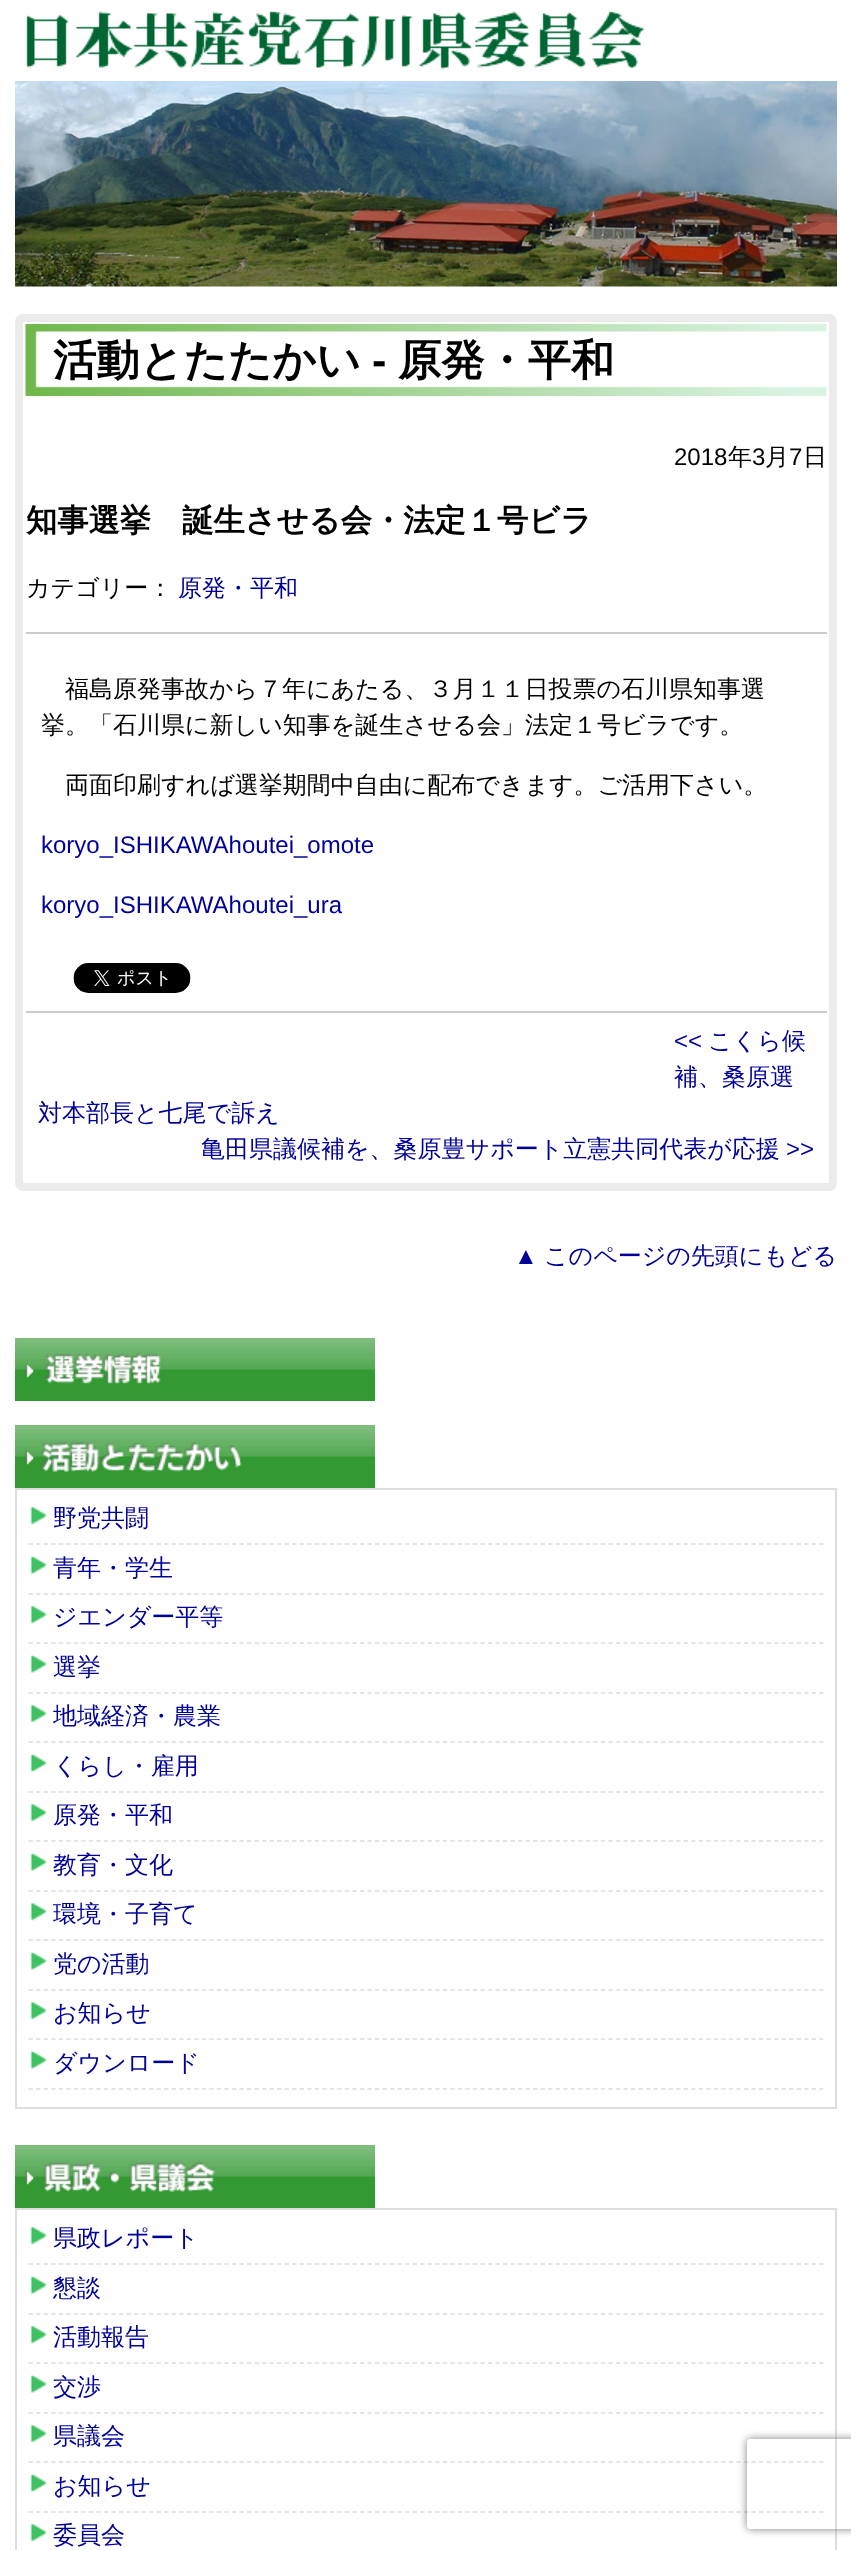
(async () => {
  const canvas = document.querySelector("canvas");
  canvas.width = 851;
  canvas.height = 2550;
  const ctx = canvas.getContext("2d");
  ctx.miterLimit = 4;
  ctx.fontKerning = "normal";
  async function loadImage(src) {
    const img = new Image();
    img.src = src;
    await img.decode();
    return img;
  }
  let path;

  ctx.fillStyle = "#ffffff";
  ctx.fillRect(0, 0, 851, 2550);
  ctx.drawImage(await loadImage("img/1.png"), 26, 10, 618, 60);
  ctx.drawImage(await loadImage("img/2.png"), 15, 81, 822, 206);
  ctx.beginPath();
  ctx.roundRect(19, 318, 814, 869, 4);
  ctx.strokeStyle = "#ebebeb";
  ctx.lineWidth = 8;
  ctx.stroke();
  ctx.drawImage(await loadImage("img/3.png"), 25, 324, 802, 72);
  ctx.fillStyle = "#cccccc";
  ctx.fillRect(26, 632, 801, 2);
  ctx.drawImage(await loadImage("img/4.png"), 73, 963, 118, 30);
  ctx.fillRect(26, 1011, 801, 2);
  ctx.drawImage(await loadImage("img/5.png"), 15, 1338, 360, 63);
  ctx.drawImage(await loadImage("img/6.png"), 15, 1425, 360, 63);
  ctx.strokeStyle = "#dddddd";
  ctx.lineWidth = 2;
  ctx.strokeRect(16, 1489, 820, 619);
  ctx.drawImage(await loadImage("img/7.png"), 30, 1506, 17, 19);
  path = new Path2D("M28.5 1544H823.5");
  ctx.lineWidth = 1.5;
  ctx.setLineDash([4.5, 3.03]);
  ctx.stroke(path);
  ctx.drawImage(await loadImage("img/8.png"), 30, 1555, 17, 19);
  path = new Path2D("M28.5 1594H823.5");
  ctx.stroke(path);
  ctx.drawImage(await loadImage("img/7.png"), 30, 1605, 17, 19);
  path = new Path2D("M28.5 1643H823.5");
  ctx.stroke(path);
  ctx.drawImage(await loadImage("img/8.png"), 30, 1654, 17, 19);
  path = new Path2D("M28.5 1693H823.5");
  ctx.stroke(path);
  ctx.drawImage(await loadImage("img/7.png"), 30, 1704, 17, 19);
  path = new Path2D("M28.5 1742H823.5");
  ctx.stroke(path);
  ctx.drawImage(await loadImage("img/8.png"), 30, 1753, 17, 19);
  path = new Path2D("M28.5 1792H823.5");
  ctx.stroke(path);
  ctx.drawImage(await loadImage("img/7.png"), 30, 1803, 17, 19);
  path = new Path2D("M28.5 1841H823.5");
  ctx.stroke(path);
  ctx.drawImage(await loadImage("img/8.png"), 30, 1852, 17, 19);
  path = new Path2D("M28.5 1891H823.5");
  ctx.stroke(path);
  ctx.drawImage(await loadImage("img/7.png"), 30, 1902, 17, 19);
  path = new Path2D("M28.5 1940H823.5");
  ctx.stroke(path);
  ctx.drawImage(await loadImage("img/8.png"), 30, 1951, 17, 19);
  path = new Path2D("M28.5 1990H823.5");
  ctx.stroke(path);
  ctx.drawImage(await loadImage("img/7.png"), 30, 2001, 17, 19);
  path = new Path2D("M28.5 2039H823.5");
  ctx.stroke(path);
  ctx.drawImage(await loadImage("img/8.png"), 30, 2050, 17, 19);
  path = new Path2D("M28.5 2089H823.5");
  ctx.stroke(path);
  ctx.drawImage(await loadImage("img/9.png"), 15, 2145, 360, 63);
  ctx.lineWidth = 2;
  ctx.setLineDash([]);
  ctx.strokeRect(16, 2209, 820, 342);
  ctx.drawImage(await loadImage("img/7.png"), 30, 2226, 17, 19);
  path = new Path2D("M28.5 2264H823.5");
  ctx.lineWidth = 1.5;
  ctx.setLineDash([4.5, 3.03]);
  ctx.stroke(path);
  ctx.drawImage(await loadImage("img/8.png"), 30, 2275, 17, 19);
  path = new Path2D("M28.5 2314H823.5");
  ctx.stroke(path);
  ctx.drawImage(await loadImage("img/7.png"), 30, 2325, 17, 19);
  path = new Path2D("M28.5 2363H823.5");
  ctx.stroke(path);
  ctx.drawImage(await loadImage("img/8.png"), 30, 2374, 17, 19);
  path = new Path2D("M28.5 2413H823.5");
  ctx.stroke(path);
  ctx.drawImage(await loadImage("img/7.png"), 30, 2424, 17, 19);
  path = new Path2D("M28.5 2462H823.5");
  ctx.stroke(path);
  ctx.drawImage(await loadImage("img/8.png"), 30, 2473, 17, 19);
  path = new Path2D("M28.5 2512H823.5");
  ctx.stroke(path);
  ctx.drawImage(await loadImage("img/7.png"), 30, 2523, 17, 19);
  ctx.save();
  path = new Path2D("M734 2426H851V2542H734ZM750 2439H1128C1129.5 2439 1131 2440.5 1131 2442V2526C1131 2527.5 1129.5 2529 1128 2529H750C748.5 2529 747 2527.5 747 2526V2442C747 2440.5 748.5 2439 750 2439Z");
  ctx.clip(path, "evenodd");
  ctx.fillStyle = "#808080";
  ctx.filter = "blur(4px)";
  ctx.beginPath();
  ctx.roundRect(747, 2439, 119, 90, 3);
  ctx.fill();
  ctx.filter = "none";
  ctx.restore();
  ctx.font = "bold 43.25px WenQuanYi Zen Hei";
  ctx.fillStyle = "#000000";
  ctx.fillText("活動とたたかい", 53, 375);
  ctx.font = "bold 43.25px Liberation Sans";
  ctx.fillText("-", 372, 375);
  ctx.font = "bold 43.25px WenQuanYi Zen Hei";
  ctx.fillText("原発・平和", 398, 375);
  ctx.font = "24px Liberation Sans";
  ctx.fillText("2018", 674, 465);
  ctx.font = "500 24px WenQuanYi Zen Hei";
  ctx.fillText("年", 728, 465);
  ctx.font = "24px Liberation Sans";
  ctx.fillText("3", 752, 465);
  ctx.font = "500 24px WenQuanYi Zen Hei";
  ctx.fillText("月", 765, 465);
  ctx.font = "24px Liberation Sans";
  ctx.fillText("7", 789, 465);
  ctx.font = "500 24px WenQuanYi Zen Hei";
  ctx.fillText("日", 803, 465);
  ctx.font = "bold 31.25px WenQuanYi Zen Hei";
  ctx.fillText("知事選挙　誕生させる会・法定１号ビラ", 26, 531);
  ctx.font = "500 24px WenQuanYi Zen Hei";
  ctx.fillText("カテゴリー：", 26, 596);
  ctx.fillStyle = "#000099";
  ctx.fillText("原発・平和", 178, 596);
  ctx.fillStyle = "#000000";
  for (const [text, x, y] of [
    ["福島原発事故から７年にあたる、３月１１日投票の石川県知事選", 65, 697],
    ["挙。「石川県に新しい知事を誕生させる会」法定１号ビラです。", 41, 733],
    ["両面印刷すれば選挙期間中自由に配布できます。ご活用下さい。", 65, 793],
  ]) {
    ctx.fillText(text, x, y);
  }
  ctx.font = "24px Liberation Sans";
  ctx.fillStyle = "#000099";
  for (const [text, x, y] of [
    ["koryo_ISHIKAWAhoutei_omote", 41, 853],
    ["koryo_ISHIKAWAhoutei_ura", 41, 913],
    ["<<", 674, 1049],
  ]) {
    ctx.fillText(text, x, y);
  }
  ctx.font = "500 24px WenQuanYi Zen Hei";
  for (const [text, x, y] of [
    ["こくら候", 708, 1049],
    ["補、桑原選", 674, 1085],
    ["対本部長と七尾で訴え", 38, 1121],
    ["亀田県議候補を、桑原豊サポート立憲共同代表が応援", 201, 1157],
  ]) {
    ctx.fillText(text, x, y);
  }
  ctx.font = "24px Liberation Sans";
  ctx.fillText(">>", 786, 1157);
  ctx.fillText("▲", 514, 1264);
  ctx.font = "500 24px WenQuanYi Zen Hei";
  for (const [text, x, y] of [
    ["このページの先頭にもどる", 544, 1264],
    ["野党共闘", 53, 1526],
    ["青年・学生", 53, 1576],
    ["ジエンダー平等", 53, 1625],
    ["選挙", 53, 1675],
    ["地域経済・農業", 53, 1724],
    ["くらし・雇用", 53, 1774],
    ["原発・平和", 53, 1823],
    ["教育・文化", 53, 1873],
    ["環境・子育て", 53, 1922],
    ["党の活動", 53, 1972],
    ["お知らせ", 53, 2021],
    ["ダウンロード", 53, 2071],
    ["県政レポート", 53, 2246],
    ["懇談", 53, 2296],
    ["活動報告", 53, 2345],
    ["交渉", 53, 2395],
    ["県議会", 53, 2444],
    ["お知らせ", 53, 2494],
    ["委員会", 53, 2543],
  ]) {
    ctx.fillText(text, x, y);
  }
})();
